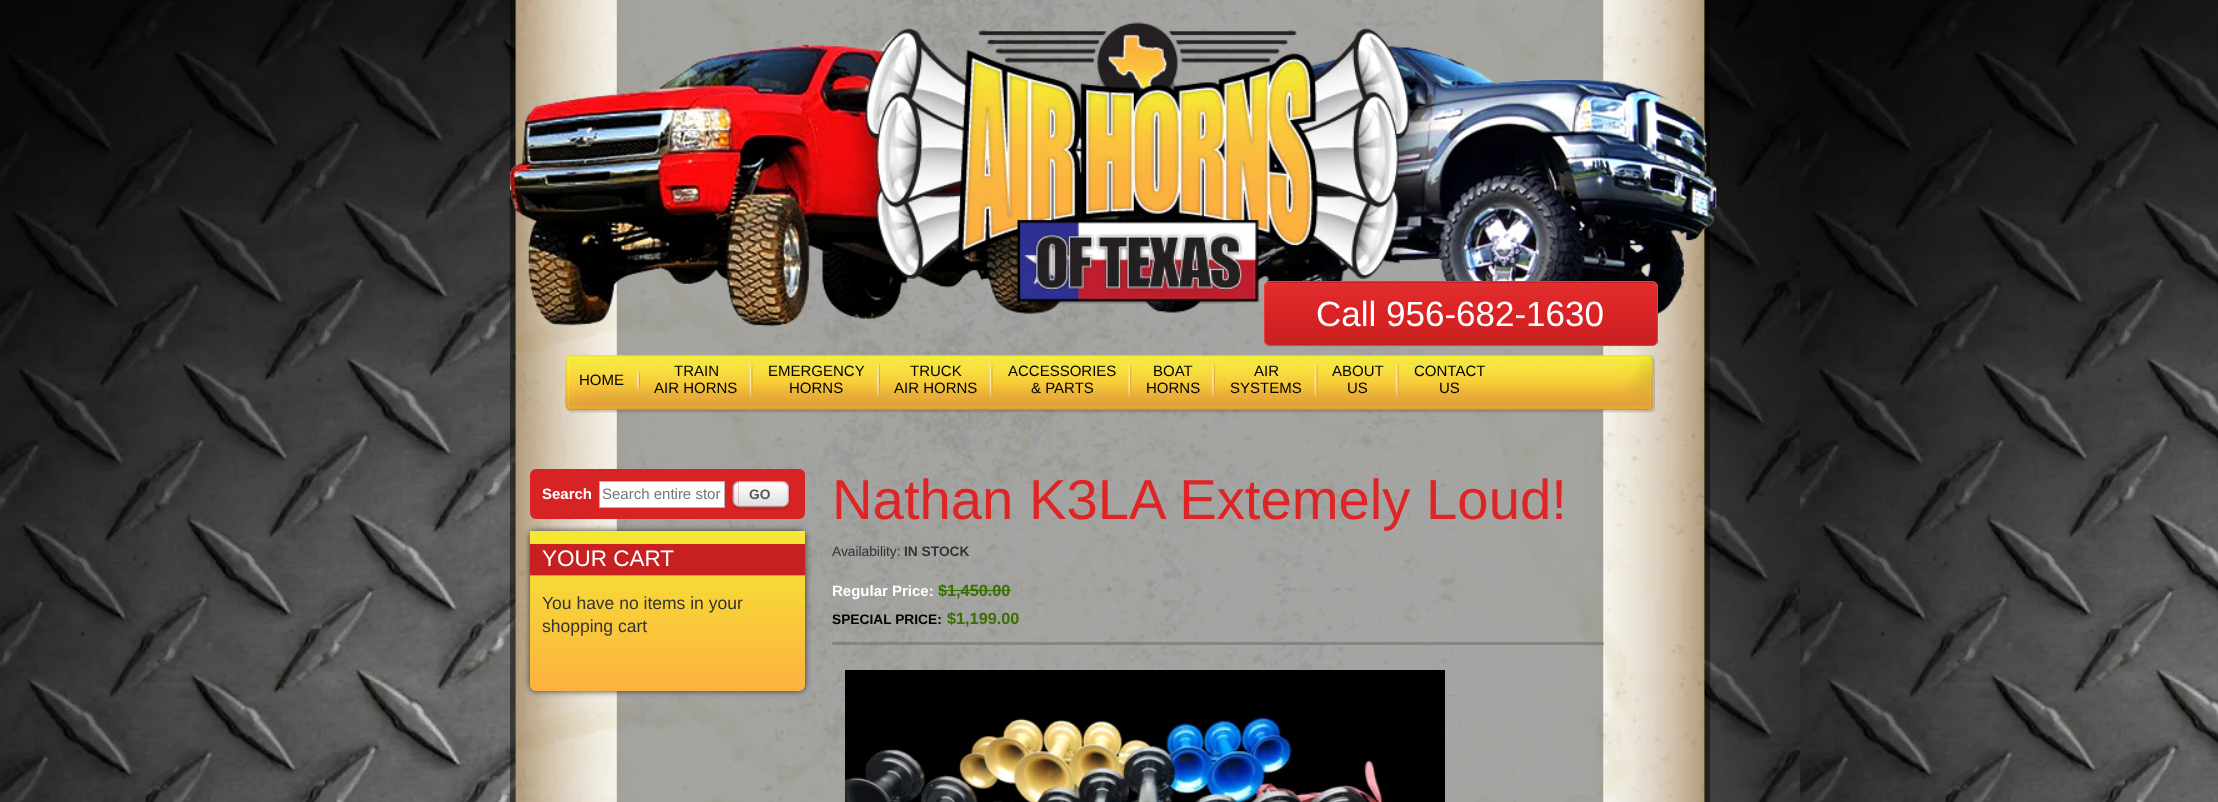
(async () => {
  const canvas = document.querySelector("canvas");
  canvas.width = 2218;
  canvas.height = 802;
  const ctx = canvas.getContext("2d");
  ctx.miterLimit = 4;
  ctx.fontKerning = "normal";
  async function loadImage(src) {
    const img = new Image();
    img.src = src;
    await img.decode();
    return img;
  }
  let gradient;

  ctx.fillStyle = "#ffffff";
  ctx.fillRect(0, 0, 2218, 802);
  ctx.drawImage(await loadImage("img/1.png"), 0, 0, 2218, 802);
  ctx.drawImage(await loadImage("img/2.png"), 510, 0, 1200, 802);
  ctx.drawImage(await loadImage("img/3.png"), 510, 22, 1207, 305);
  ctx.save();
  ctx.beginPath();
  ctx.roundRect(1264, 281, 394, 65, 6);
  ctx.clip();
  gradient = ctx.createLinearGradient(1461, 220, 1461, 283);
  gradient.addColorStop(0, "#e12e2f");
  gradient.addColorStop(0.5, "#da2324");
  gradient.addColorStop(0.99, "#c82021");
  ctx.fillStyle = gradient;
  ctx.fillRect(1264, 281, 394, 2);
  gradient = ctx.createLinearGradient(1461, 282, 1461, 345);
  gradient.addColorStop(0, "#e12e2f");
  gradient.addColorStop(0.5, "#da2324");
  gradient.addColorStop(0.99, "#c82021");
  ctx.fillStyle = gradient;
  ctx.fillRect(1264, 283, 394, 62);
  ctx.restore();
  ctx.beginPath();
  ctx.roundRect(1264.5, 281.5, 393, 64, 5.5);
  ctx.strokeStyle = "#b05b59";
  ctx.stroke();
  ctx.beginPath();
  ctx.roundRect(1264.5, 281.5, 393, 64, 5.5);
  ctx.strokeStyle = "#ea3b3c";
  ctx.stroke();
  ctx.drawImage(await loadImage("img/4.png"), 565, 355, 1090, 58);
  ctx.drawImage(await loadImage("img/5.png"), 636, 372, 4, 17);
  ctx.drawImage(await loadImage("img/6.png"), 748, 363, 5, 34);
  ctx.drawImage(await loadImage("img/7.png"), 876, 363, 4, 34);
  ctx.drawImage(await loadImage("img/6.png"), 988, 363, 5, 34);
  ctx.drawImage(await loadImage("img/8.png"), 1127, 363, 5, 34);
  ctx.drawImage(await loadImage("img/9.png"), 1211, 363, 4, 34);
  ctx.drawImage(await loadImage("img/10.png"), 1313, 363, 5, 34);
  ctx.drawImage(await loadImage("img/11.png"), 1395, 363, 4, 34);
  ctx.fillStyle = "#d72324";
  ctx.beginPath();
  ctx.roundRect(530, 469, 275, 50, 6);
  ctx.fill();
  ctx.fillStyle = "#ffffff";
  ctx.beginPath();
  ctx.rect(599.5, 481.5, 125, 26);
  ctx.fill();
  ctx.strokeStyle = "#b6b6b6";
  ctx.stroke();
  ctx.drawImage(await loadImage("img/12.png"), 731, 481, 8, 28);
  ctx.drawImage(await loadImage("img/13.png"), 738, 481, 52, 29);
  ctx.fillStyle = "#333333";
  ctx.filter = "blur(3px)";
  ctx.beginPath();
  ctx.roundRect(530, 531, 275, 160, 6);
  ctx.fill();
  ctx.filter = "none";
  gradient = ctx.createLinearGradient(530, 531, 530, 691);
  gradient.addColorStop(0, "#f5e933");
  gradient.addColorStop(1, "#fcb140");
  ctx.fillStyle = gradient;
  ctx.beginPath();
  ctx.roundRect(530, 531, 275, 160, [0, 0, 6, 6]);
  ctx.fill();
  for (const [x, y, w, h, color] of [
    [530, 544, 275, 31, "#c82021"],
    [530, 575, 275, 1, "#a1a1a1"],
    [832, 642, 772, 3, "rgba(55, 55, 55, 0.27)"],
    [939, 590, 72, 1, "#396f00"],
  ]) {
    ctx.fillStyle = color;
    ctx.fillRect(x, y, w, h);
  }
  ctx.drawImage(await loadImage("img/14.png"), 845, 670, 600, 132);
  ctx.font = "35px Liberation Sans";
  ctx.fillStyle = "#ffffff";
  ctx.fillText("Call 956-682-1630", 1316, 326);
  ctx.font = "15px Liberation Sans";
  ctx.fillStyle = "#000000";
  for (const [text, x, y] of [
    ["HOME", 579, 385],
    ["TRAIN", 674, 376],
    ["AIR HORNS", 654, 393],
    ["EMERGENCY", 768, 376],
    ["HORNS", 789, 393],
    ["TRUCK", 910, 376],
    ["AIR HORNS", 894, 393],
    ["ACCESSORIES", 1008, 376],
    ["& PARTS", 1031, 393],
    ["BOAT", 1153, 376],
    ["HORNS", 1146, 393],
    ["AIR", 1254, 376],
    ["SYSTEMS", 1230, 393],
    ["ABOUT", 1332, 376],
    ["US", 1347, 393],
    ["CONTACT", 1414, 376],
    ["US", 1439, 393],
  ]) {
    ctx.fillText(text, x, y);
  }
  ctx.font = "bold 15px Liberation Sans";
  ctx.fillStyle = "#ffffff";
  ctx.fillText("Search", 542, 499);
  ctx.font = "15px Liberation Sans";
  ctx.fillStyle = "#757575";
  ctx.fillText("Search entire stor", 602, 499);
  ctx.font = "bold 13.75px Liberation Sans";
  ctx.fillStyle = "#555555";
  ctx.fillText("GO", 749, 499);
  ctx.font = "22.5px Liberation Sans";
  ctx.fillStyle = "#ffffff";
  ctx.fillText("YOUR CART", 542, 566);
  ctx.font = "17.5px Liberation Sans";
  ctx.fillStyle = "#333333";
  ctx.fillText("You have no items in your", 542, 609);
  ctx.fillText("shopping cart", 542, 632);
  ctx.font = "56.25px Liberation Sans";
  ctx.fillStyle = "#de2425";
  ctx.fillText("Nathan K3LA Extemely Loud!", 832, 519);
  ctx.font = "13.75px Liberation Sans";
  ctx.fillStyle = "#333333";
  ctx.fillText("Availability:", 832, 556);
  ctx.font = "bold 13.75px Liberation Sans";
  ctx.fillText("IN STOCK", 904, 556);
  ctx.font = "bold 15px Liberation Sans";
  ctx.fillStyle = "#ffffff";
  ctx.fillText("Regular Price:", 832, 596);
  ctx.font = "bold 16.25px Liberation Sans";
  ctx.fillStyle = "#396f00";
  ctx.fillText("$1,450.00", 938, 596);
  ctx.font = "bold 13.75px Liberation Sans";
  ctx.fillStyle = "#000000";
  ctx.fillText("SPECIAL PRICE:", 832, 624);
  ctx.font = "bold 16.25px Liberation Sans";
  ctx.fillStyle = "#396f00";
  ctx.fillText("$1,199.00", 947, 624);
})();
